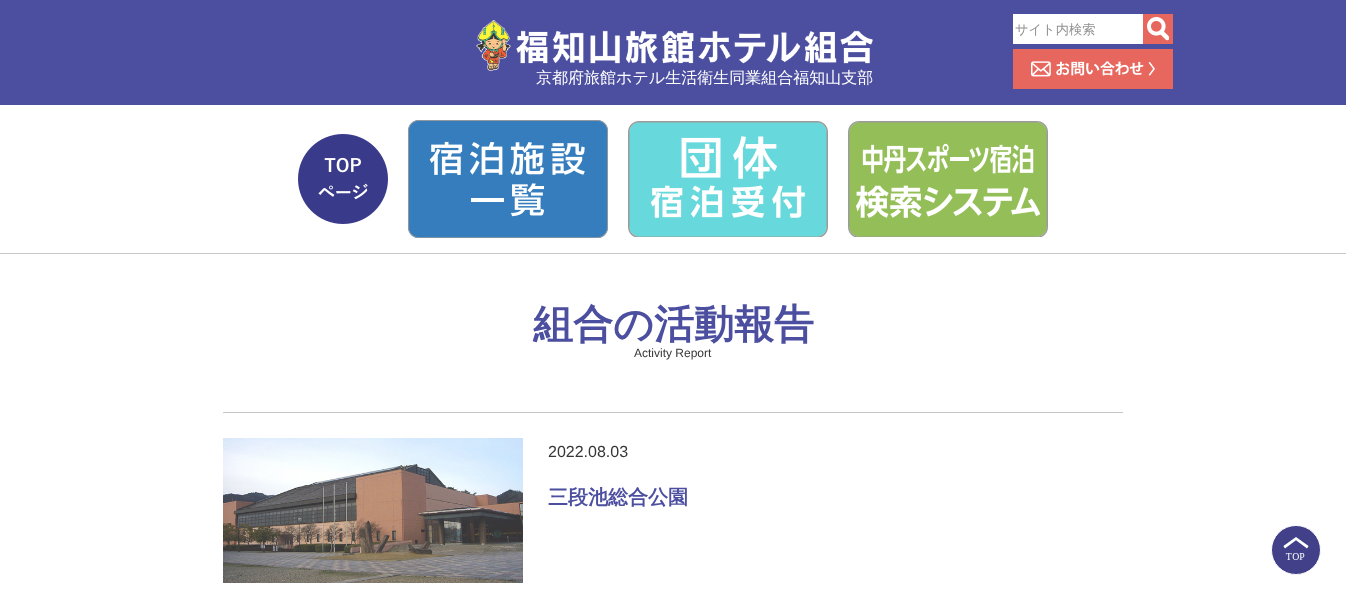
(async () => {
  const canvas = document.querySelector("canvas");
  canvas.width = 1346;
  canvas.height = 600;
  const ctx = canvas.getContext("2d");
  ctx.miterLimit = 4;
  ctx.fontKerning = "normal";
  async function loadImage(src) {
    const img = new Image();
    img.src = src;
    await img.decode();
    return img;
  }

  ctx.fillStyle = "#ffffff";
  ctx.fillRect(0, 0, 1346, 600);
  for (const [x, y, w, h, color] of [
    [0, 0, 1346, 105, "#4c4fa0"],
    [1013, 14, 130, 30, "#ffffff"],
    [1143, 14, 30, 30, "#e7675e"],
  ]) {
    ctx.fillStyle = color;
    ctx.fillRect(x, y, w, h);
  }
  ctx.drawImage(await loadImage("img/1.png"), 1147, 17, 22, 24);
  ctx.drawImage(await loadImage("img/2.png"), 1013, 49, 160, 40);
  ctx.drawImage(await loadImage("img/3.png"), 476, 20, 397, 51);
  ctx.drawImage(await loadImage("img/4.png"), 298, 134, 90, 90);
  ctx.drawImage(await loadImage("img/5.png"), 408, 120, 200, 118);
  ctx.drawImage(await loadImage("img/6.png"), 628, 121, 200, 116);
  ctx.drawImage(await loadImage("img/7.png"), 848, 121, 200, 116);
  ctx.fillStyle = "#c8c8c8";
  ctx.fillRect(0, 253, 1346, 1);
  ctx.fillStyle = "#c6c6c6";
  ctx.fillRect(223, 412, 900, 1);
  ctx.drawImage(await loadImage("img/8.png"), 223, 438, 300, 145);
  ctx.drawImage(await loadImage("img/9.png"), 1271, 525, 50, 50);
  ctx.font = "500 13.25px WenQuanYi Zen Hei";
  ctx.fillStyle = "#929292";
  ctx.fillText("サイト内検索", 1015, 34);
  ctx.font = "500 16px WenQuanYi Zen Hei";
  ctx.fillStyle = "#ffffff";
  ctx.fillText("京都府旅館ホテル生活衛生同業組合福知山支部", 536, 83);
  ctx.font = "bold 40px WenQuanYi Zen Hei";
  ctx.fillStyle = "#4c4fa0";
  ctx.fillText("組合の活動報告", 533, 338);
  ctx.font = "12px Liberation Sans";
  ctx.fillStyle = "#363636";
  ctx.fillText("Activity Report", 634, 357);
  ctx.font = "16px Liberation Sans";
  ctx.fillText("2022.08.03", 548, 457);
  ctx.font = "bold 20px WenQuanYi Zen Hei";
  ctx.fillStyle = "#4c4fa0";
  ctx.fillText("三段池総合公園", 548, 504);
})();
